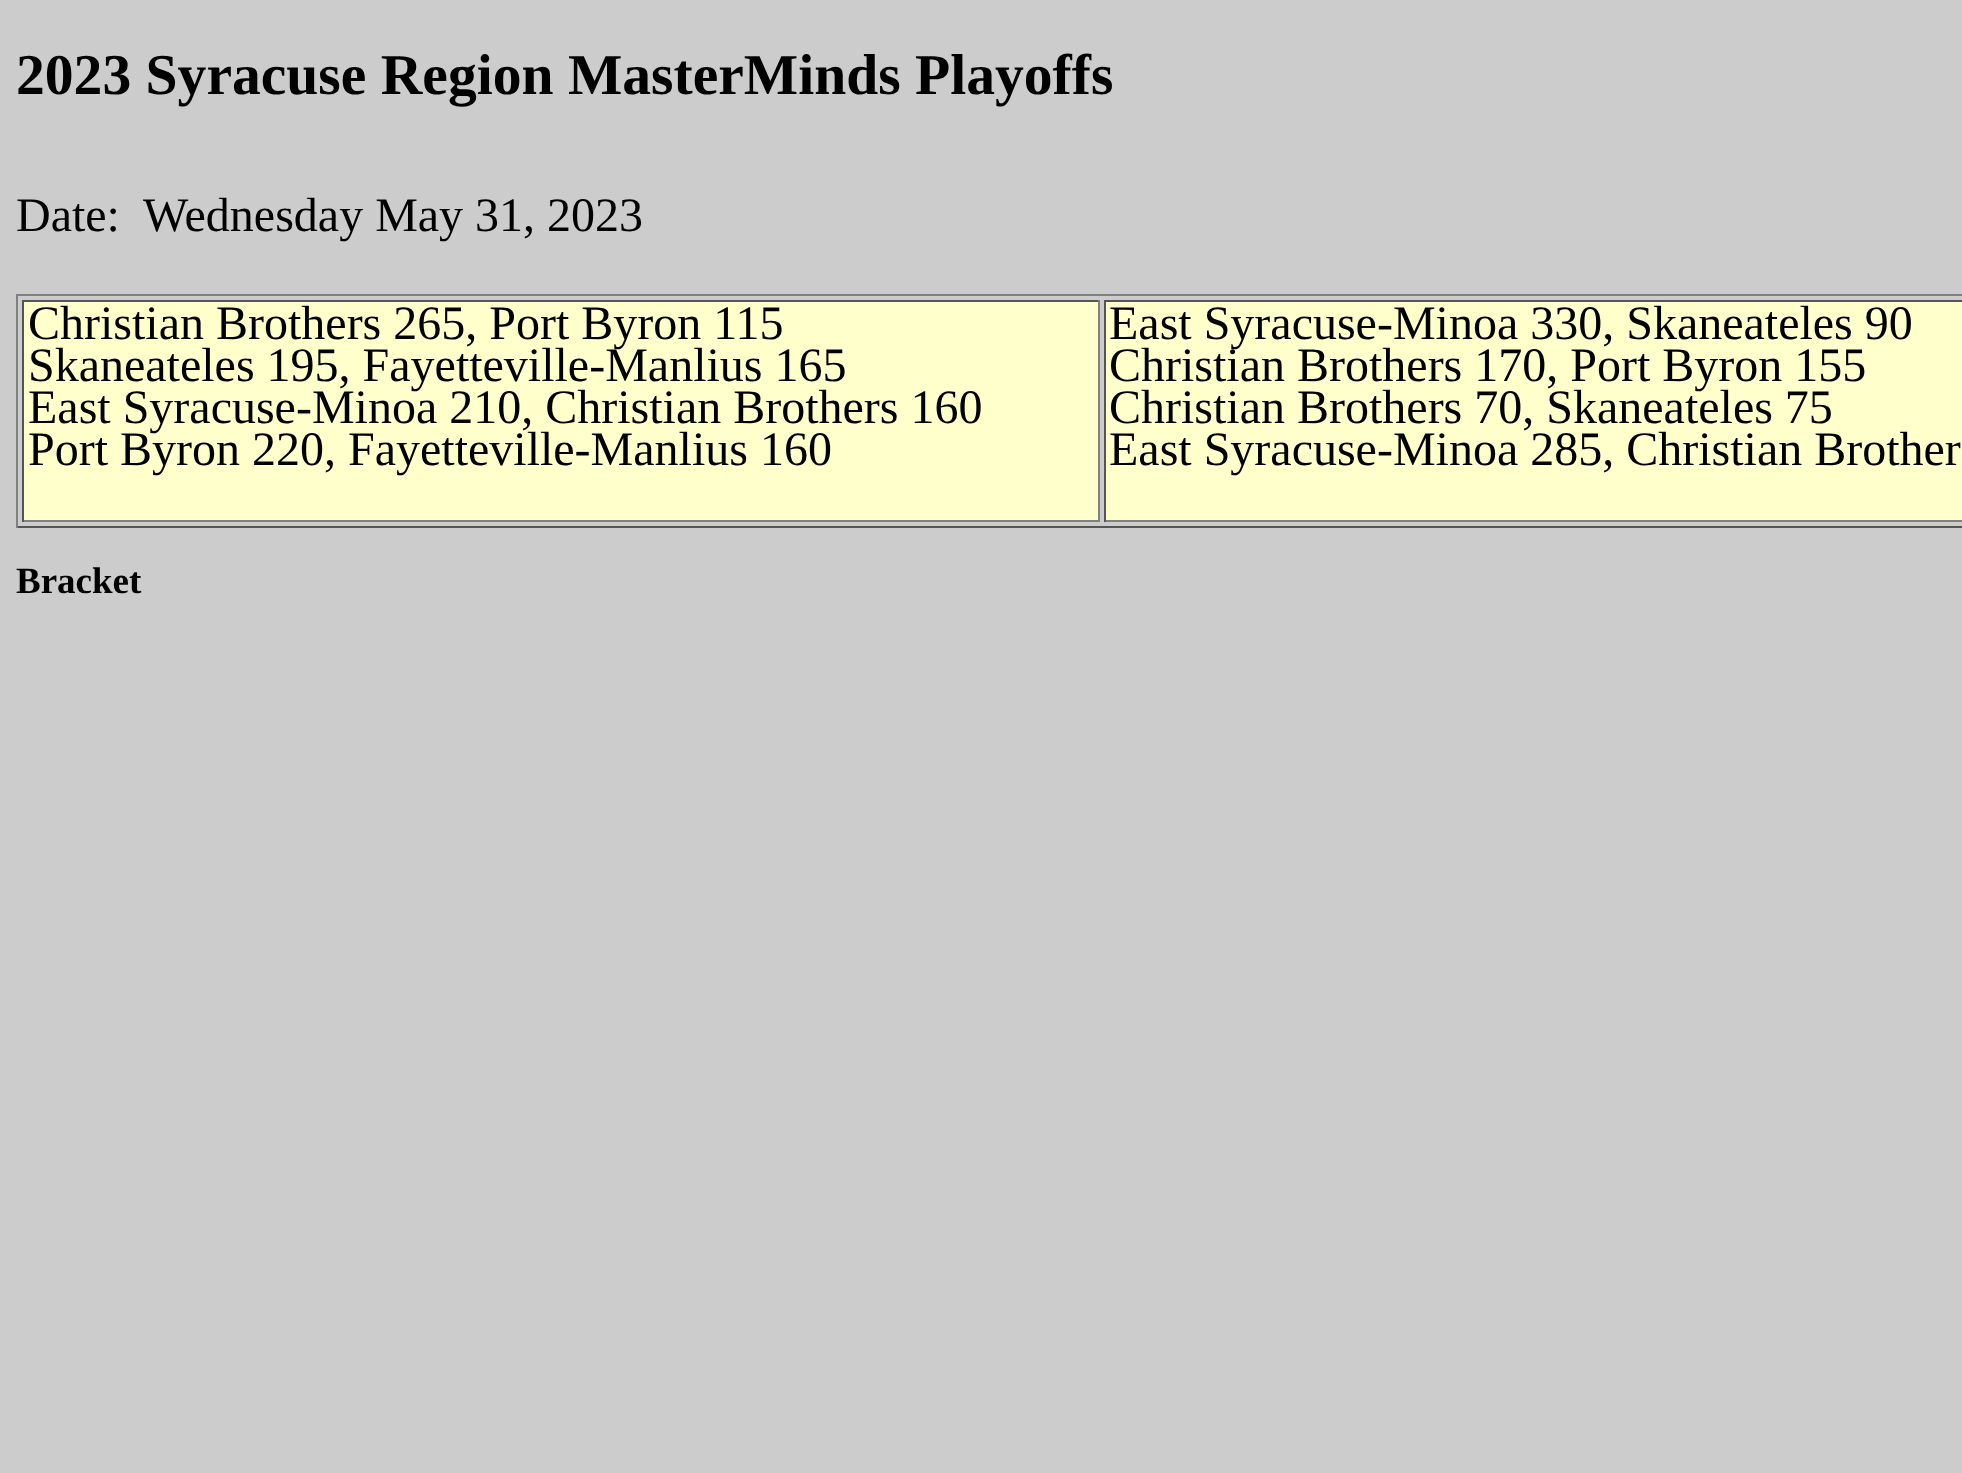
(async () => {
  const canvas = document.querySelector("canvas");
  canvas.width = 1962;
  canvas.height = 1473;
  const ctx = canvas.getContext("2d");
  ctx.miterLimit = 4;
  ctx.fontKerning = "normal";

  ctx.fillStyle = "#cccccc";
  ctx.fillRect(0, 0, 1962, 1473);
  for (const [x, y, w, h, color] of [
    [16, 294, 1946, 2, "#808080"],
    [16, 526, 1946, 2, "#555555"],
    [16, 294, 2, 234, "#808080"],
    [24, 302, 1074, 218, "#ffffcc"],
    [22, 300, 1078, 2, "#555555"],
    [1098, 300, 2, 222, "#808080"],
    [22, 520, 1078, 2, "#808080"],
    [22, 300, 2, 222, "#555555"],
    [1106, 302, 856, 218, "#ffffcc"],
    [1104, 300, 858, 2, "#555555"],
    [1104, 520, 858, 2, "#808080"],
    [1104, 300, 2, 222, "#555555"],
  ]) {
    ctx.fillStyle = color;
    ctx.fillRect(x, y, w, h);
  }
  ctx.font = "bold 57.6px Liberation Serif";
  ctx.fillStyle = "#000000";
  ctx.fillText("2023 Syracuse Region MasterMinds Playoffs", 16, 94);
  ctx.font = "48px Liberation Serif";
  for (const [text, x, y] of [
    ["Date:  Wednesday May 31, 2023", 16, 231],
    ["Christian Brothers 265, Port Byron 115", 28, 339],
    ["Skaneateles 195, Fayetteville-Manlius 165", 28, 381],
    ["East Syracuse-Minoa 210, Christian Brothers 160", 28, 423],
    ["Port Byron 220, Fayetteville-Manlius 160", 28, 465],
    ["East Syracuse-Minoa 330, Skaneateles 90", 1109, 339],
    ["Christian Brothers 170, Port Byron 155", 1109, 381],
    ["Christian Brothers 70, Skaneateles 75", 1109, 423],
    ["East Syracuse-Minoa 285, Christian Brother", 1109, 465],
  ]) {
    ctx.fillText(text, x, y);
  }
  ctx.font = "bold 37px Liberation Serif";
  ctx.fillText("Bracket", 16, 593);
})();
